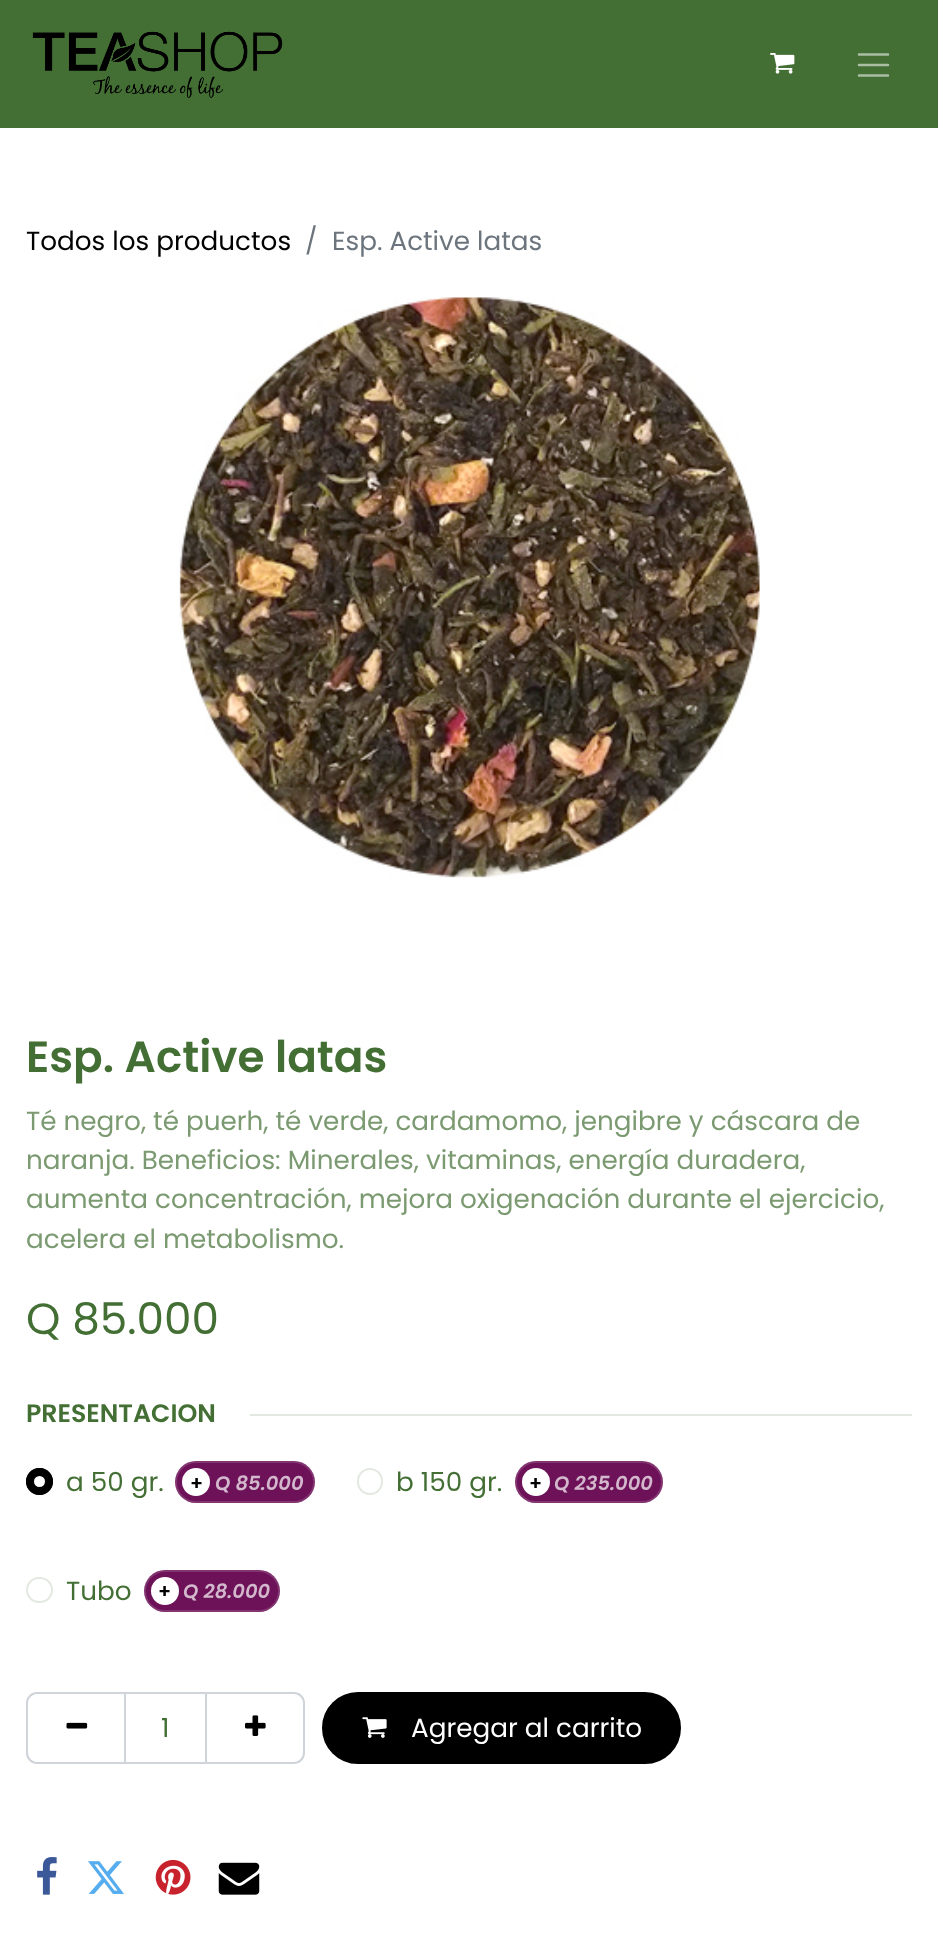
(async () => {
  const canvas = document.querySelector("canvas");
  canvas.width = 938;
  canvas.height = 1956;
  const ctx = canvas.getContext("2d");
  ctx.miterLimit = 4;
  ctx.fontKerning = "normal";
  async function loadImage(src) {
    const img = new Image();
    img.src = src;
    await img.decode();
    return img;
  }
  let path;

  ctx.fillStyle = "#ffffff";
  ctx.fillRect(0, 0, 938, 1956);
  ctx.fillStyle = "#436f34";
  ctx.fillRect(0, 0, 938, 128);
  ctx.drawImage(await loadImage("img/1.png"), 32, 31, 251, 67);
  ctx.drawImage(await loadImage("img/2.png"), 770, 53, 25, 21);
  path = new Path2D("M859 54.5H888M859 65H888M859 75.5H888");
  ctx.strokeStyle = "#aabea4";
  ctx.lineWidth = 2.6;
  ctx.lineCap = "round";
  ctx.stroke(path);
  ctx.drawImage(await loadImage("img/3.png"), 179, 297, 581, 581);
  ctx.fillStyle = "#e3e9e0";
  ctx.fillRect(250, 1414, 662, 2);
  ctx.fillStyle = "#000000";
  ctx.beginPath();
  ctx.arc(39.5, 1481.5, 13.5, 0, Math.PI * 2);
  ctx.fill();
  ctx.fillStyle = "#ffffff";
  ctx.beginPath();
  ctx.arc(39.5, 1481.5, 5.5, 0, Math.PI * 2);
  ctx.fill();
  ctx.beginPath();
  ctx.arc(39.5, 1481.5, 12.5, 0, Math.PI * 2);
  ctx.strokeStyle = "#000000";
  ctx.lineWidth = 2;
  ctx.stroke();
  ctx.fillStyle = "#6d1258";
  ctx.beginPath();
  ctx.roundRect(175, 1461, 140, 42, 21);
  ctx.fill();
  ctx.beginPath();
  ctx.roundRect(176, 1462, 138, 40, 20);
  ctx.strokeStyle = "rgba(255, 255, 255, 0.15)";
  ctx.stroke();
  ctx.fillStyle = "#ffffff";
  ctx.beginPath();
  ctx.arc(196, 1482, 14, 0, Math.PI * 2);
  ctx.fill();
  ctx.beginPath();
  ctx.roundRect(358, 1469, 24, 25, 12);
  ctx.strokeStyle = "#e3e9e0";
  ctx.stroke();
  ctx.fillStyle = "#6d1258";
  ctx.beginPath();
  ctx.roundRect(515, 1461, 148, 42, 21);
  ctx.fill();
  ctx.beginPath();
  ctx.roundRect(516, 1462, 146, 40, 20);
  ctx.strokeStyle = "rgba(255, 255, 255, 0.15)";
  ctx.stroke();
  ctx.fillStyle = "#ffffff";
  ctx.beginPath();
  ctx.arc(536, 1482, 14, 0, Math.PI * 2);
  ctx.fill();
  ctx.beginPath();
  ctx.roundRect(27, 1578, 25, 24, 12);
  ctx.strokeStyle = "#e3e9e0";
  ctx.stroke();
  ctx.fillStyle = "#6d1258";
  ctx.beginPath();
  ctx.roundRect(144, 1570, 136, 42, 21);
  ctx.fill();
  ctx.beginPath();
  ctx.roundRect(145, 1571, 134, 40, 20);
  ctx.strokeStyle = "rgba(255, 255, 255, 0.15)";
  ctx.stroke();
  ctx.fillStyle = "#ffffff";
  ctx.beginPath();
  ctx.arc(165, 1591, 14, 0, Math.PI * 2);
  ctx.fill();
  ctx.strokeStyle = "#ced4da";
  ctx.strokeRect(125, 1693, 81, 70);
  ctx.beginPath();
  ctx.roundRect(27, 1693, 98, 70, [10, 0, 0, 10]);
  ctx.stroke();
  ctx.drawImage(await loadImage("img/4.png"), 66, 1722, 22, 7);
  ctx.beginPath();
  ctx.roundRect(206, 1693, 98, 70, [0, 10, 10, 0]);
  ctx.stroke();
  ctx.drawImage(await loadImage("img/5.png"), 245, 1715, 21, 21);
  ctx.fillStyle = "#000000";
  ctx.beginPath();
  ctx.roundRect(323, 1693, 357, 70, 35);
  ctx.fill();
  ctx.strokeStyle = "#000000";
  ctx.stroke();
  ctx.drawImage(await loadImage("img/6.png"), 362, 1717, 25, 21);
  ctx.drawImage(await loadImage("img/7.png"), 37, 1857, 20, 38);
  ctx.drawImage(await loadImage("img/8.png"), 88, 1861, 36, 33);
  ctx.drawImage(await loadImage("img/9.png"), 155, 1859, 36, 36);
  ctx.drawImage(await loadImage("img/10.png"), 218, 1862, 42, 33);
  ctx.font = "26.25px Poppins";
  ctx.fillText("Todos los productos", 26, 250);
  ctx.fillStyle = "#6c757d";
  ctx.fillText("/", 305, 250);
  ctx.fillText("Esp. Active latas", 332, 250);
  ctx.font = "600 43.75px Poppins";
  ctx.fillStyle = "#436f34";
  ctx.fillText("Esp. Active latas", 26, 1072);
  ctx.font = "26.25px Poppins";
  ctx.fillStyle = "#7b9a71";
  for (const [text, x, y] of [
    ["Té negro, té puerh, té verde, cardamomo, jengibre y cáscara de", 26, 1130],
    ["naranja. Beneficios: Minerales, vitaminas, energía duradera,", 26, 1169],
    ["aumenta concentración, mejora oxigenación durante el ejercicio,", 26, 1208],
    ["acelera el metabolismo.", 26, 1248],
  ]) {
    ctx.fillText(text, x, y);
  }
  ctx.font = "43.75px Poppins";
  ctx.fillStyle = "#436f34";
  ctx.fillText("Q 85.000", 26, 1334);
  ctx.font = "600 25.25px Poppins";
  ctx.fillText("PRESENTACION", 26, 1422);
  ctx.font = "26.25px Poppins";
  ctx.fillText("a 50 gr.", 66, 1491);
  ctx.font = "600 19.5px Poppins";
  ctx.fillStyle = "#000000";
  ctx.fillText("+", 190, 1490);
  ctx.font = "italic 600 19.5px Poppins";
  ctx.fillStyle = "#d3b8cd";
  ctx.fillText("Q 85.000", 215, 1490);
  ctx.font = "26.25px Poppins";
  ctx.fillStyle = "#436f34";
  ctx.fillText("b 150 gr.", 396, 1491);
  ctx.font = "600 19.5px Poppins";
  ctx.fillStyle = "#000000";
  ctx.fillText("+", 529, 1490);
  ctx.font = "italic 600 19.5px Poppins";
  ctx.fillStyle = "#d3b8cd";
  ctx.fillText("Q 235.000", 554, 1490);
  ctx.font = "26.25px Poppins";
  ctx.fillStyle = "#436f34";
  ctx.fillText("Tubo", 66, 1600);
  ctx.font = "600 19.5px Poppins";
  ctx.fillStyle = "#000000";
  ctx.fillText("+", 158, 1598);
  ctx.font = "italic 600 19.5px Poppins";
  ctx.fillStyle = "#d3b8cd";
  ctx.fillText("Q 28.000", 183, 1598);
  ctx.font = "26.25px Poppins";
  ctx.fillStyle = "#436f34";
  ctx.fillText("1", 161, 1737);
  ctx.fillStyle = "#ffffff";
  ctx.fillText("Agregar al carrito", 411, 1737);
})();
